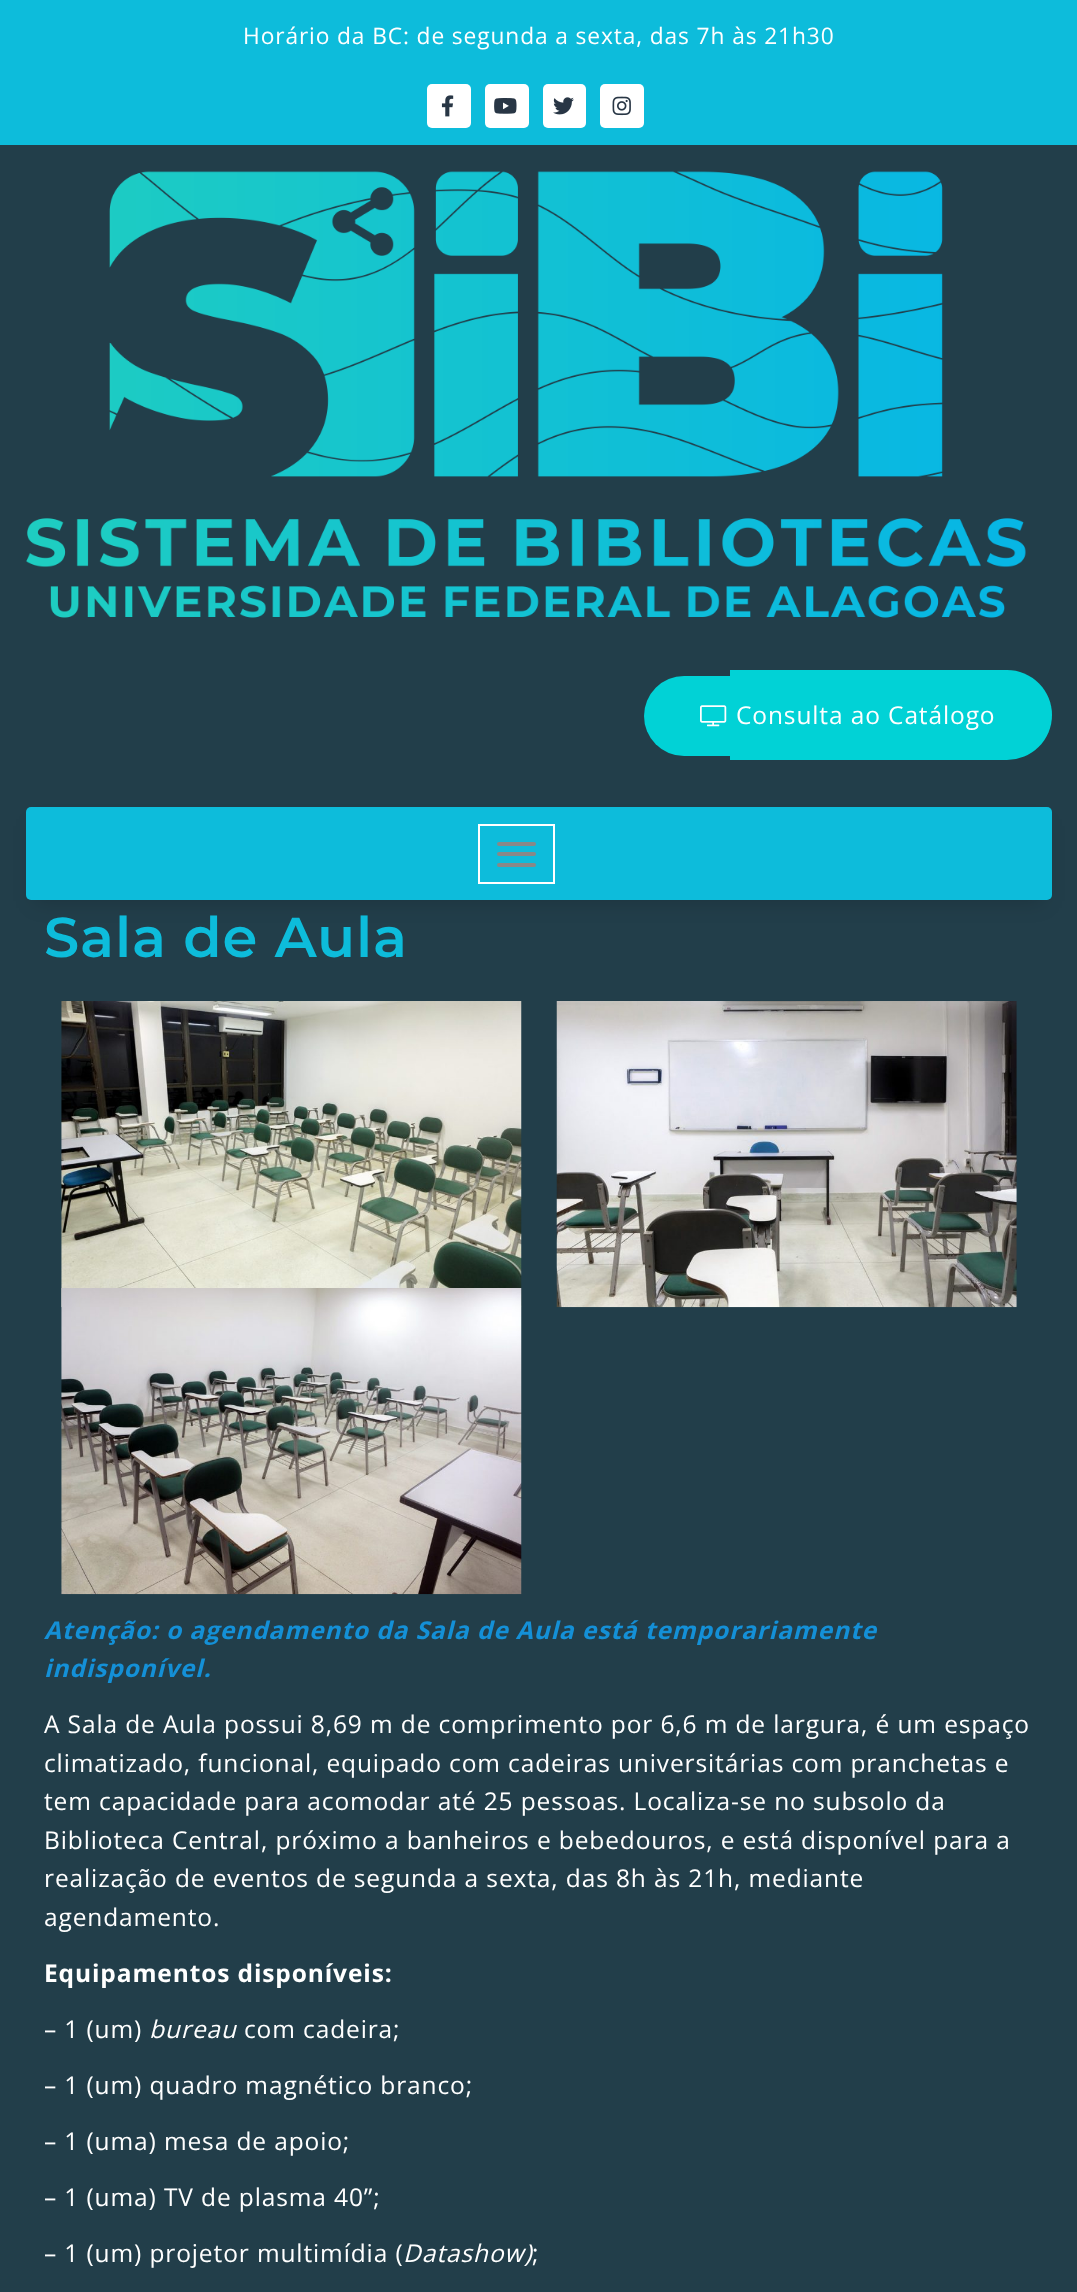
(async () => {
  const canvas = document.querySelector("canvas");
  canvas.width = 1077;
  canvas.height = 2292;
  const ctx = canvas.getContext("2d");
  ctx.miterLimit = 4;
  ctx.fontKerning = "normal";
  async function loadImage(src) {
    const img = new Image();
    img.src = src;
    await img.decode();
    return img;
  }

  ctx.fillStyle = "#223e4a";
  ctx.fillRect(0, 0, 1077, 2292);
  ctx.fillStyle = "#0dbcdb";
  ctx.fillRect(0, 0, 1077, 145);
  ctx.fillStyle = "#ffffff";
  ctx.beginPath();
  ctx.roundRect(427, 84, 44, 44, 5);
  ctx.fill();
  ctx.drawImage(await loadImage("img/1.png"), 441, 95, 13, 22);
  ctx.beginPath();
  ctx.roundRect(485, 84, 44, 44, 5);
  ctx.fill();
  ctx.drawImage(await loadImage("img/2.png"), 494, 98, 23, 16);
  ctx.beginPath();
  ctx.roundRect(543, 84, 43, 44, 5);
  ctx.fill();
  ctx.drawImage(await loadImage("img/3.png"), 553, 97, 21, 18);
  ctx.beginPath();
  ctx.roundRect(600, 84, 44, 44, 5);
  ctx.fill();
  ctx.drawImage(await loadImage("img/4.png"), 612, 96, 19, 20);
  ctx.drawImage(await loadImage("img/5.png"), 26, 171, 1000, 447);
  ctx.fillStyle = "#01d2d6";
  ctx.beginPath();
  ctx.roundRect(644, 676, 86, 80, [40, 0, 0, 40]);
  ctx.fill();
  ctx.beginPath();
  ctx.roundRect(730, 670, 322, 90, [0, 45, 45, 0]);
  ctx.fill();
  ctx.drawImage(await loadImage("img/6.png"), 700, 705, 27, 22);
  ctx.fillStyle = "rgba(0, 0, 0, 0.18)";
  ctx.filter = "blur(10.5px)";
  ctx.beginPath();
  ctx.rect(35, 826, 1008, 75);
  ctx.fill();
  ctx.filter = "none";
  ctx.fillStyle = "#0dbcdb";
  ctx.beginPath();
  ctx.roundRect(26, 807, 1026, 93, 5);
  ctx.fill();
  ctx.strokeStyle = "#ffffff";
  ctx.lineWidth = 2;
  ctx.strokeRect(479, 825, 75, 58);
  ctx.fillStyle = "#888888";
  ctx.beginPath();
  ctx.roundRect(497, 842, 39, 4, 2);
  ctx.fill();
  ctx.beginPath();
  ctx.roundRect(497, 852, 39, 4, 2);
  ctx.fill();
  ctx.beginPath();
  ctx.roundRect(497, 863, 39, 4, 2);
  ctx.fill();
  ctx.drawImage(await loadImage("img/7.png"), 61, 1001, 461, 307);
  ctx.drawImage(await loadImage("img/8.png"), 556, 1001, 461, 307);
  ctx.drawImage(await loadImage("img/9.png"), 61, 1288, 461, 307);
  ctx.letterSpacing = "0.88px";
  ctx.font = "22.75px Open Sans";
  ctx.fillStyle = "#ffffff";
  ctx.fillText("Horário da BC: de segunda a sexta, das 7h às 21h30", 243, 44);
  ctx.font = "24.5px Open Sans";
  ctx.fillText("Consulta ao Catálogo", 736, 724);
  ctx.font = "600 56px Montserrat";
  ctx.fillStyle = "#0dbcdb";
  ctx.fillText("Sala de Aula", 44, 957);
  ctx.font = "italic bold 24.5px Open Sans";
  ctx.fillStyle = "#1490d7";
  ctx.fillText("Atenção: o agendamento da Sala de Aula está temporariamente", 44, 1639);
  ctx.fillText("indisponível.", 44, 1677);
  ctx.font = "24.5px Open Sans";
  ctx.fillStyle = "#ffffff";
  for (const [text, x, y] of [
    ["A Sala de Aula possui 8,69 m de comprimento por 6,6 m de largura, é um espaço", 44, 1733],
    ["climatizado, funcional, equipado com cadeiras universitárias com pranchetas e", 44, 1772],
    ["tem capacidade para acomodar até 25 pessoas. Localiza-se no subsolo da", 44, 1810],
    ["Biblioteca Central, próximo a banheiros e bebedouros, e está disponível para a", 44, 1849],
    ["realização de eventos de segunda a sexta, das 8h às 21h, mediante", 44, 1887],
    ["agendamento.", 44, 1926],
  ]) {
    ctx.fillText(text, x, y);
  }
  ctx.font = "bold 24.5px Open Sans";
  ctx.fillText("Equipamentos disponíveis:", 44, 1982);
  ctx.font = "24.5px Open Sans";
  ctx.fillText("– 1 (um)", 44, 2038);
  ctx.font = "italic 24.5px Open Sans";
  ctx.fillText("bureau", 149, 2038);
  ctx.font = "24.5px Open Sans";
  for (const [text, x, y] of [
    ["com cadeira;", 244, 2038],
    ["– 1 (um) quadro magnético branco;", 44, 2094],
    ["– 1 (uma) mesa de apoio;", 44, 2150],
    ["– 1 (uma) TV de plasma 40”;", 44, 2206],
    ["– 1 (um) projetor multimídia (", 44, 2262],
  ]) {
    ctx.fillText(text, x, y);
  }
  ctx.font = "italic 24.5px Open Sans";
  ctx.fillText("Datashow)", 403, 2262);
  ctx.font = "24.5px Open Sans";
  ctx.fillText(";", 532, 2262);
})();
